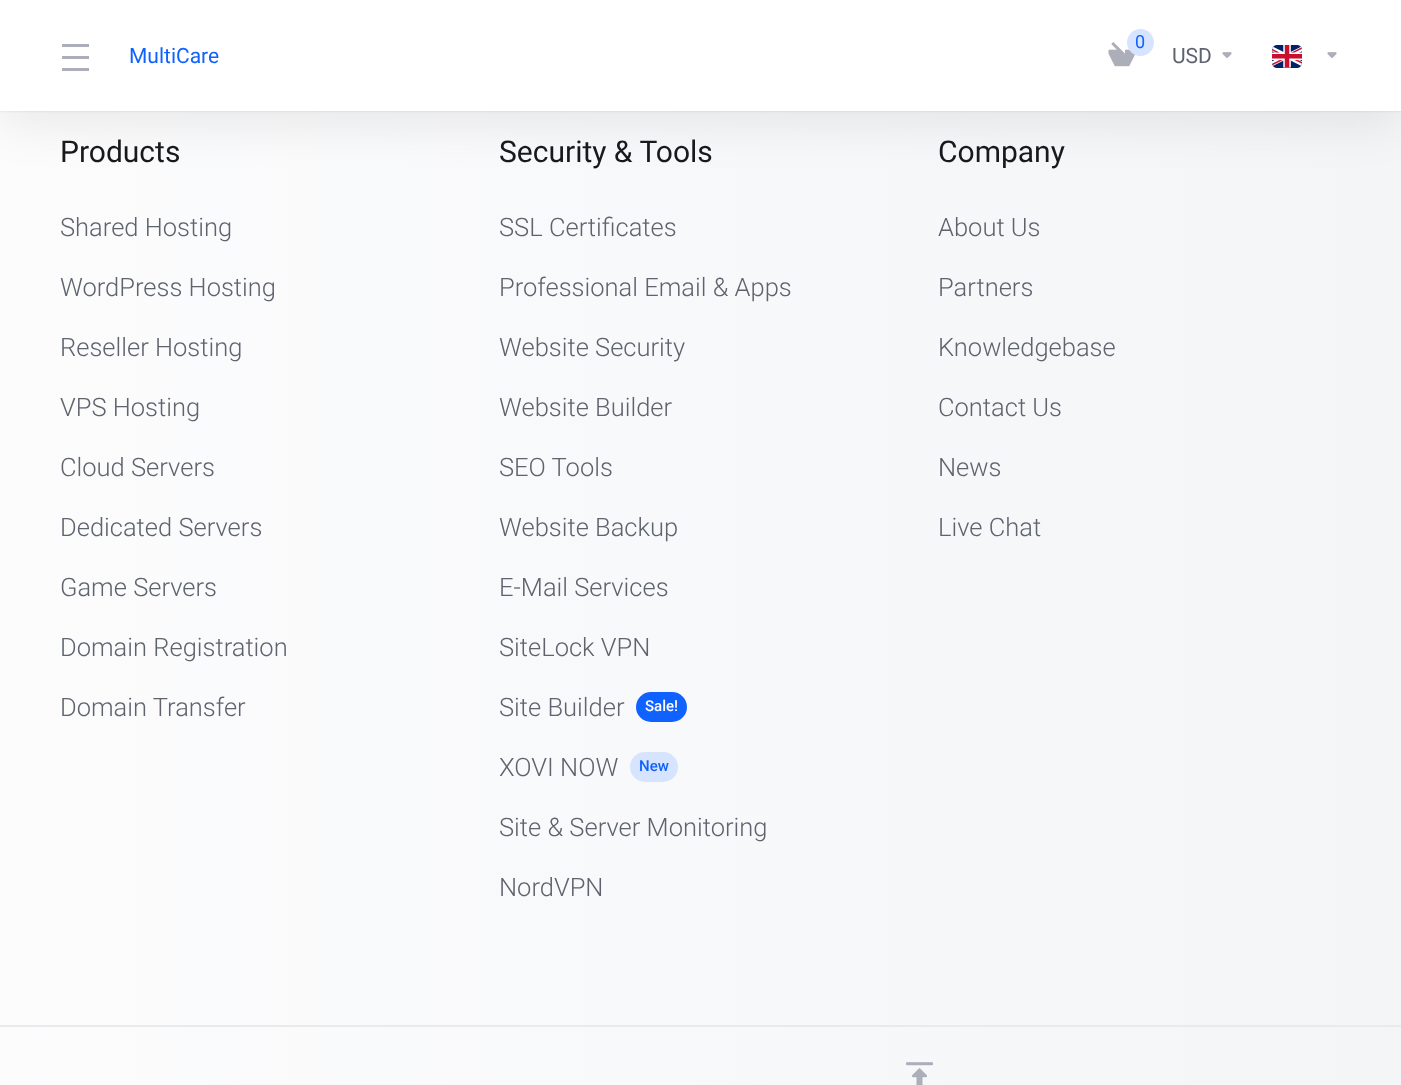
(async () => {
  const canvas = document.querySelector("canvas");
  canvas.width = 1401;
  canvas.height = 1085;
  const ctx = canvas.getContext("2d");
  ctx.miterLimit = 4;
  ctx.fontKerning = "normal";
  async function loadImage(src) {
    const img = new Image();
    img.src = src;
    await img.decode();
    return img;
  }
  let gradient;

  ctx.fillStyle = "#ffffff";
  ctx.fillRect(0, 0, 1401, 1085);
  gradient = ctx.createLinearGradient(1401, 503, 0, 503);
  gradient.addColorStop(0, "#f3f5f7");
  gradient.addColorStop(1, "#fcfcfd");
  ctx.fillStyle = gradient;
  ctx.fillRect(0, 111, 1401, 974);
  ctx.fillStyle = "rgba(0, 0, 0, 0.08)";
  ctx.filter = "blur(24px)";
  ctx.beginPath();
  ctx.rect(0, 12, 1401, 111);
  ctx.fill();
  ctx.filter = "none";
  ctx.fillStyle = "rgba(0, 0, 0, 0.12)";
  ctx.filter = "blur(1px)";
  ctx.beginPath();
  ctx.rect(0, 0, 1401, 111);
  ctx.fill();
  ctx.filter = "none";
  for (const [x, y, w, h, color] of [
    [0, 0, 1401, 111, "#ffffff"],
    [62, 44, 27, 3, "#acafb9"],
    [62, 56, 27, 3, "#acafb9"],
    [62, 68, 27, 3, "#acafb9"],
  ]) {
    ctx.fillStyle = color;
    ctx.fillRect(x, y, w, h);
  }
  ctx.drawImage(await loadImage("img/1.png"), 1108, 42, 28, 25);
  ctx.fillStyle = "#d6e4ff";
  ctx.beginPath();
  ctx.arc(1140.5, 42.5, 13.5, 0, Math.PI * 2);
  ctx.fill();
  ctx.drawImage(await loadImage("img/2.png"), 1222, 52, 10, 6);
  ctx.drawImage(await loadImage("img/3.png"), 1272, 45, 30, 23);
  ctx.drawImage(await loadImage("img/2.png"), 1327, 52, 10, 6);
  ctx.fillStyle = "#1062fe";
  ctx.beginPath();
  ctx.roundRect(636, 692, 51, 30, 15);
  ctx.fill();
  ctx.fillStyle = "#d6e4ff";
  ctx.beginPath();
  ctx.roundRect(630, 752, 48, 30, 15);
  ctx.fill();
  ctx.fillStyle = "#e9eaec";
  ctx.fillRect(0, 1025, 1401, 2);
  ctx.drawImage(await loadImage("img/4.png"), 906, 1062, 27, 23);
  ctx.font = "21px Roboto";
  ctx.fillStyle = "#1062fe";
  ctx.fillText("MultiCare", 129, 63);
  ctx.font = "18px Roboto";
  ctx.fillText("0", 1135, 48);
  ctx.font = "21px Roboto";
  ctx.fillStyle = "#5e636e";
  ctx.fillText("USD", 1172, 63);
  ctx.font = "30px Roboto";
  ctx.fillStyle = "#17191c";
  ctx.fillText("Products", 60, 162);
  ctx.font = "300 25.5px Roboto";
  ctx.fillStyle = "#5e636e";
  for (const [text, x, y] of [
    ["Shared Hosting", 60, 236],
    ["WordPress Hosting", 60, 296],
    ["Reseller Hosting", 60, 356],
    ["VPS Hosting", 60, 416],
    ["Cloud Servers", 60, 476],
    ["Dedicated Servers", 60, 536],
    ["Game Servers", 60, 596],
    ["Domain Registration", 60, 656],
    ["Domain Transfer", 60, 716],
  ]) {
    ctx.fillText(text, x, y);
  }
  ctx.font = "30px Roboto";
  ctx.fillStyle = "#17191c";
  ctx.fillText("Security & Tools", 499, 162);
  ctx.font = "300 25.5px Roboto";
  ctx.fillStyle = "#5e636e";
  for (const [text, x, y] of [
    ["SSL Certificates", 499, 236],
    ["Professional Email & Apps", 499, 296],
    ["Website Security", 499, 356],
    ["Website Builder", 499, 416],
    ["SEO Tools", 499, 476],
    ["Website Backup", 499, 536],
    ["E-Mail Services", 499, 596],
    ["SiteLock VPN", 499, 656],
    ["Site Builder", 499, 716],
  ]) {
    ctx.fillText(text, x, y);
  }
  ctx.font = "500 15px Roboto";
  ctx.fillStyle = "#ffffff";
  ctx.fillText("Sale!", 645, 711);
  ctx.font = "300 25.5px Roboto";
  ctx.fillStyle = "#5e636e";
  ctx.fillText("XOVI NOW", 499, 776);
  ctx.font = "500 15px Roboto";
  ctx.fillStyle = "#1062fe";
  ctx.fillText("New", 639, 771);
  ctx.font = "300 25.5px Roboto";
  ctx.fillStyle = "#5e636e";
  ctx.fillText("Site & Server Monitoring", 499, 836);
  ctx.fillText("NordVPN", 499, 896);
  ctx.font = "30px Roboto";
  ctx.fillStyle = "#17191c";
  ctx.fillText("Company", 938, 162);
  ctx.font = "300 25.5px Roboto";
  ctx.fillStyle = "#5e636e";
  for (const [text, x, y] of [
    ["About Us", 938, 236],
    ["Partners", 938, 296],
    ["Knowledgebase", 938, 356],
    ["Contact Us", 938, 416],
    ["News", 938, 476],
    ["Live Chat", 938, 536],
  ]) {
    ctx.fillText(text, x, y);
  }
})();
